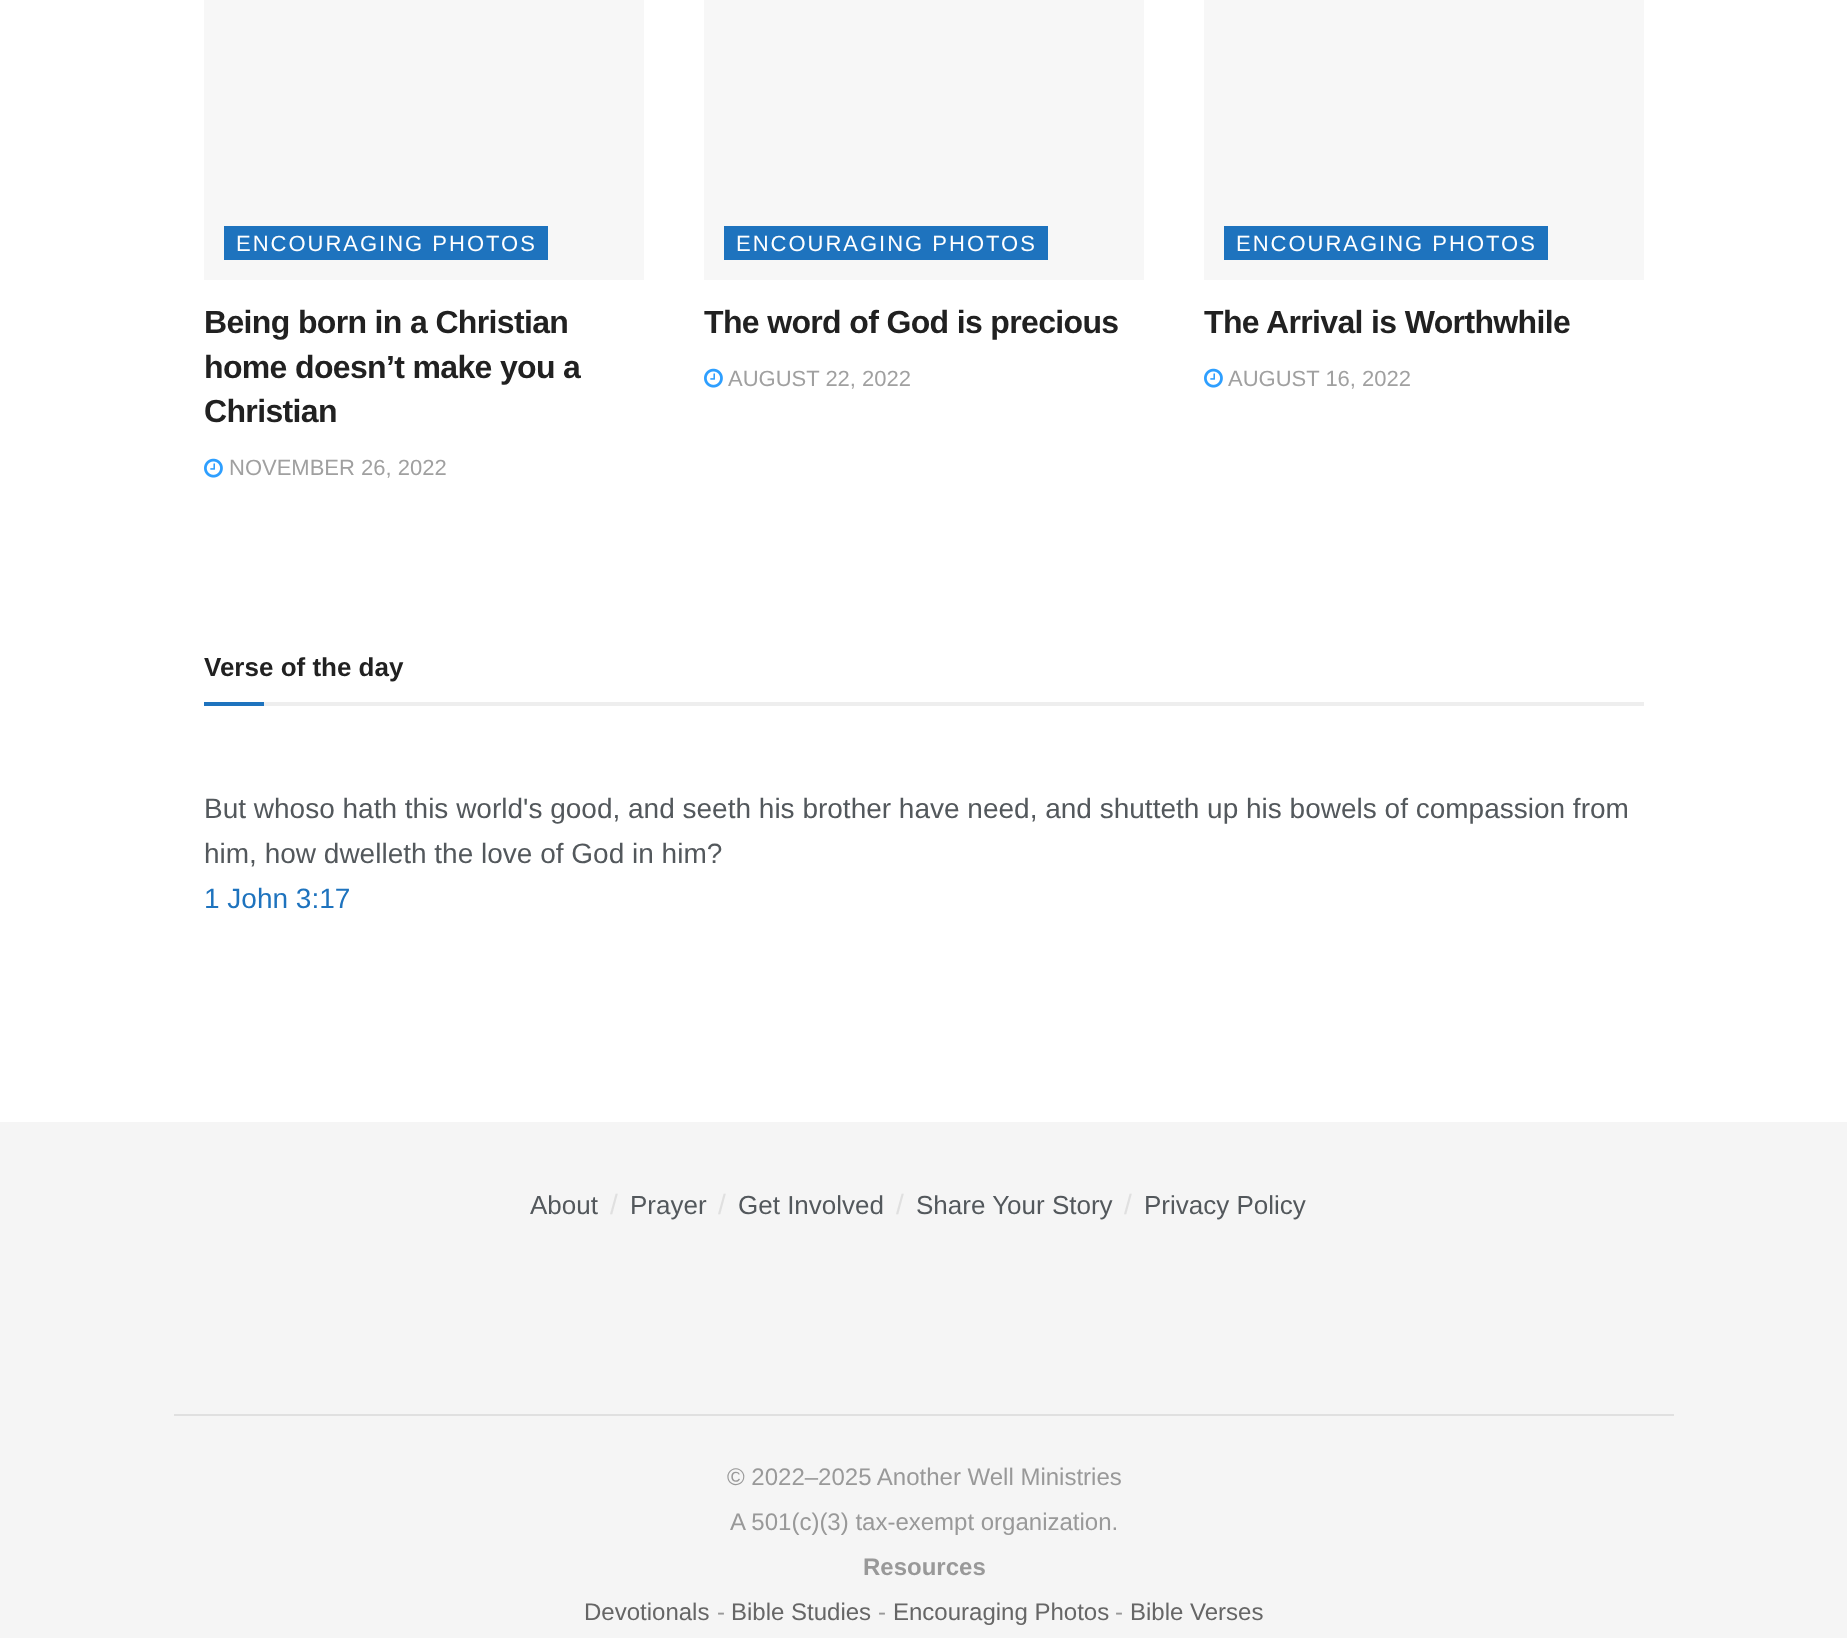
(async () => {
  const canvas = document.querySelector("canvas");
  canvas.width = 1847;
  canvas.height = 1638;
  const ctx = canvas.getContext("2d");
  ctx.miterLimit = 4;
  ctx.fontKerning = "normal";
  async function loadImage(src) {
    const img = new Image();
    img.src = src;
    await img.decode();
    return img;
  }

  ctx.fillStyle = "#ffffff";
  ctx.fillRect(0, 0, 1847, 1638);
  ctx.fillStyle = "#f7f7f7";
  ctx.fillRect(204, 0, 440, 280);
  ctx.fillStyle = "#1e73be";
  ctx.fillRect(224, 226, 324, 34);
  ctx.drawImage(await loadImage("img/1.png"), 204, 458, 19, 20);
  ctx.fillStyle = "#f7f7f7";
  ctx.fillRect(704, 0, 440, 280);
  ctx.fillStyle = "#1e73be";
  ctx.fillRect(724, 226, 324, 34);
  ctx.drawImage(await loadImage("img/1.png"), 704, 368, 19, 20);
  ctx.fillStyle = "#f7f7f7";
  ctx.fillRect(1204, 0, 440, 280);
  ctx.fillStyle = "#1e73be";
  ctx.fillRect(1224, 226, 324, 34);
  ctx.drawImage(await loadImage("img/1.png"), 1204, 368, 19, 20);
  for (const [x, y, w, h, color] of [
    [264, 702, 1380, 4, "#eeeeee"],
    [204, 702, 60, 4, "#1e73be"],
    [0, 1122, 1847, 516, "#f5f5f5"],
    [174, 1414, 1500, 2, "#e0e0e0"],
  ]) {
    ctx.fillStyle = color;
    ctx.fillRect(x, y, w, h);
  }
  ctx.letterSpacing = "2px";
  ctx.font = "22px Liberation Sans";
  ctx.fillStyle = "#ffffff";
  ctx.fillText("ENCOURAGING PHOTOS", 236, 251);
  ctx.letterSpacing = "-0.65px";
  ctx.font = "bold 32px Liberation Sans";
  ctx.fillStyle = "#212121";
  for (const [text, x, y] of [
    ["Being born in a Christian", 204, 333],
    ["home doesn’t make you a", 204, 378],
    ["Christian", 204, 422],
  ]) {
    ctx.fillText(text, x, y);
  }
  ctx.letterSpacing = "0px";
  ctx.font = "22px Liberation Sans";
  ctx.fillStyle = "#a0a0a0";
  ctx.fillText("NOVEMBER 26, 2022", 229, 475);
  ctx.letterSpacing = "2px";
  ctx.fillStyle = "#ffffff";
  ctx.fillText("ENCOURAGING PHOTOS", 736, 251);
  ctx.letterSpacing = "-0.65px";
  ctx.font = "bold 32px Liberation Sans";
  ctx.fillStyle = "#212121";
  ctx.fillText("The word of God is precious", 704, 333);
  ctx.letterSpacing = "0px";
  ctx.font = "22px Liberation Sans";
  ctx.fillStyle = "#a0a0a0";
  ctx.fillText("AUGUST 22, 2022", 728, 386);
  ctx.letterSpacing = "2px";
  ctx.fillStyle = "#ffffff";
  ctx.fillText("ENCOURAGING PHOTOS", 1236, 251);
  ctx.letterSpacing = "-0.65px";
  ctx.font = "bold 32px Liberation Sans";
  ctx.fillStyle = "#212121";
  ctx.fillText("The Arrival is Worthwhile", 1204, 333);
  ctx.letterSpacing = "0px";
  ctx.font = "22px Liberation Sans";
  ctx.fillStyle = "#a0a0a0";
  ctx.fillText("AUGUST 16, 2022", 1228, 386);
  ctx.font = "bold 26px Liberation Sans";
  ctx.fillStyle = "#212121";
  ctx.fillText("Verse of the day", 204, 676);
  ctx.font = "28px Liberation Sans";
  ctx.fillStyle = "#53585c";
  ctx.fillText("But whoso hath this world's good, and seeth his brother have need, and shutteth up his bowels of compassion from", 204, 818);
  ctx.fillText("him, how dwelleth the love of God in him?", 204, 863);
  ctx.fillStyle = "#1e73be";
  ctx.fillText("1 John 3:17", 204, 908);
  ctx.font = "26px Liberation Sans";
  ctx.fillStyle = "#53585c";
  ctx.fillText("About", 530, 1214);
  ctx.font = "28px Liberation Sans";
  ctx.fillStyle = "#e0e0e0";
  ctx.fillText("/", 610, 1214);
  ctx.font = "26px Liberation Sans";
  ctx.fillStyle = "#53585c";
  ctx.fillText("Prayer", 630, 1214);
  ctx.font = "28px Liberation Sans";
  ctx.fillStyle = "#e0e0e0";
  ctx.fillText("/", 718, 1214);
  ctx.font = "26px Liberation Sans";
  ctx.fillStyle = "#53585c";
  ctx.fillText("Get Involved", 738, 1214);
  ctx.font = "28px Liberation Sans";
  ctx.fillStyle = "#e0e0e0";
  ctx.fillText("/", 896, 1214);
  ctx.font = "26px Liberation Sans";
  ctx.fillStyle = "#53585c";
  ctx.fillText("Share Your Story", 916, 1214);
  ctx.font = "28px Liberation Sans";
  ctx.fillStyle = "#e0e0e0";
  ctx.fillText("/", 1124, 1214);
  ctx.font = "26px Liberation Sans";
  ctx.fillStyle = "#53585c";
  ctx.fillText("Privacy Policy", 1144, 1214);
  ctx.font = "24px Liberation Sans";
  ctx.fillStyle = "#999999";
  ctx.fillText("© 2022–2025 Another Well Ministries", 727, 1485);
  ctx.fillText("A 501(c)(3) tax-exempt organization.", 730, 1530);
  ctx.font = "bold 24px Liberation Sans";
  ctx.fillText("Resources", 863, 1575);
  ctx.font = "24px Liberation Sans";
  ctx.fillStyle = "#666666";
  ctx.fillText("Devotionals", 584, 1620);
  ctx.fillStyle = "#999999";
  ctx.fillText("-", 717, 1620);
  ctx.fillStyle = "#666666";
  ctx.fillText("Bible Studies", 731, 1620);
  ctx.fillStyle = "#999999";
  ctx.fillText("-", 878, 1620);
  ctx.fillStyle = "#666666";
  ctx.fillText("Encouraging Photos", 893, 1620);
  ctx.fillStyle = "#999999";
  ctx.fillText("-", 1115, 1620);
  ctx.fillStyle = "#666666";
  ctx.fillText("Bible Verses", 1130, 1620);
})();
